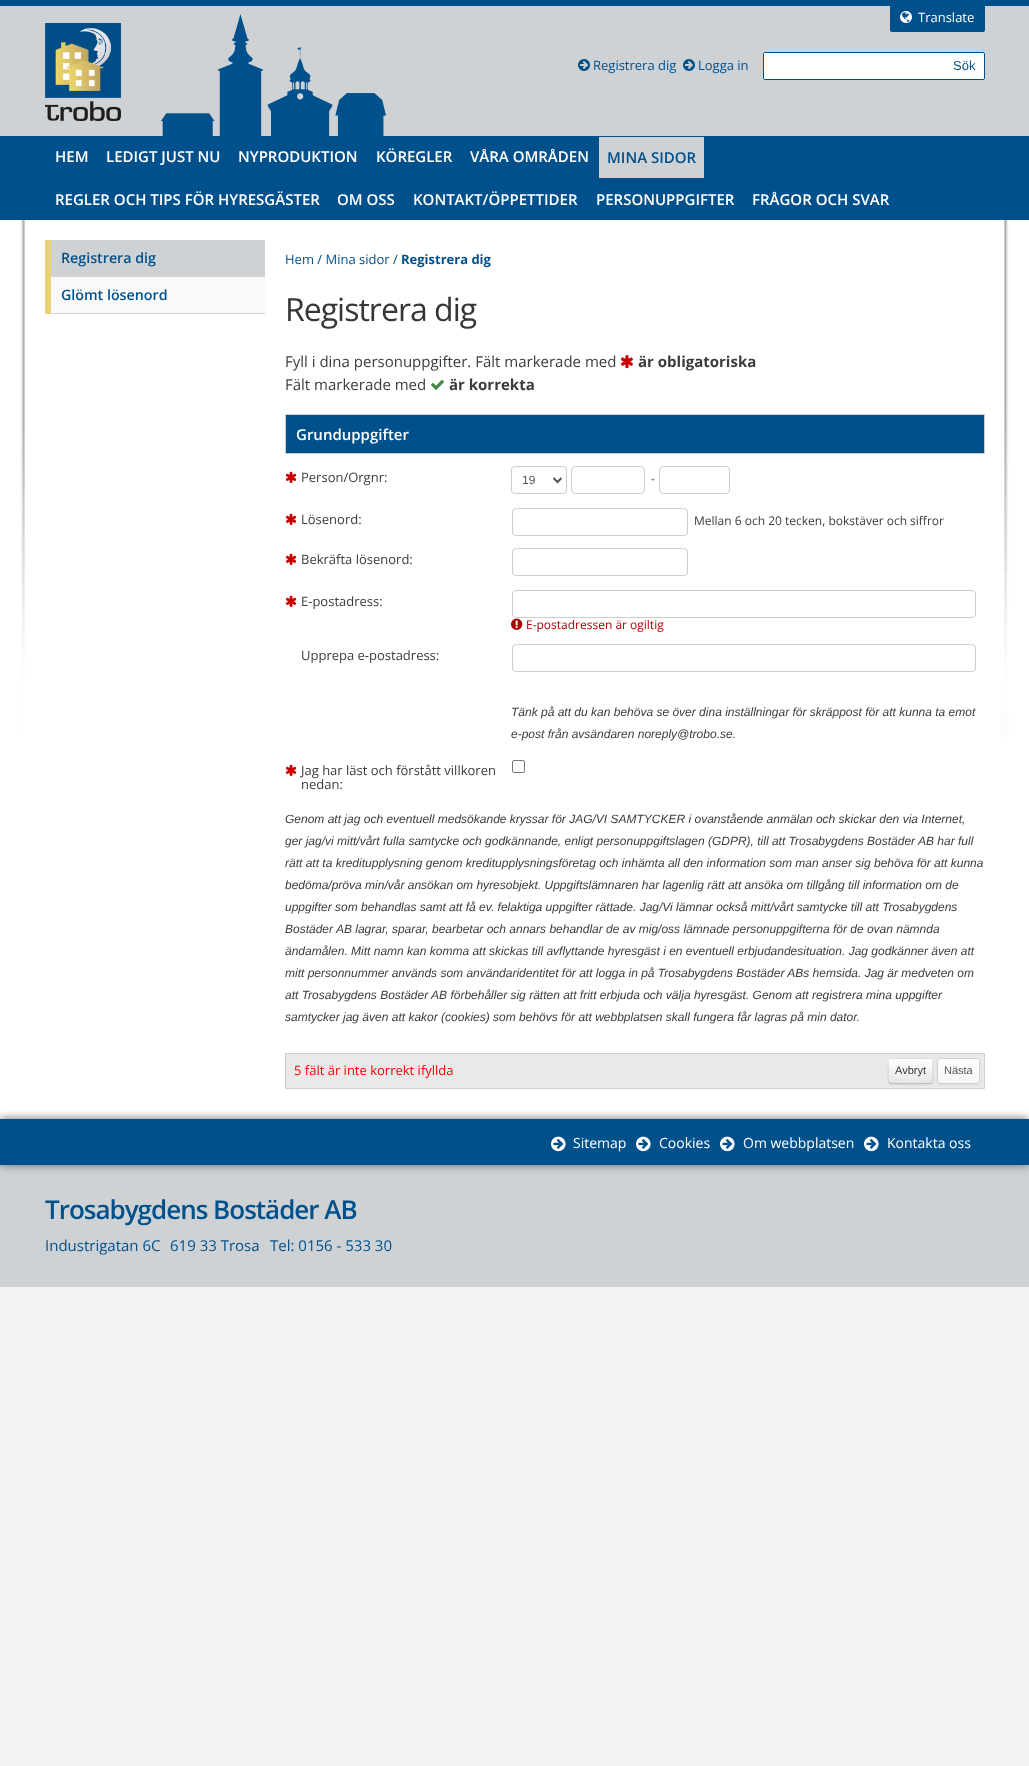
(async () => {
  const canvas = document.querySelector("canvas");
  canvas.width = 1029;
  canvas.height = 1766;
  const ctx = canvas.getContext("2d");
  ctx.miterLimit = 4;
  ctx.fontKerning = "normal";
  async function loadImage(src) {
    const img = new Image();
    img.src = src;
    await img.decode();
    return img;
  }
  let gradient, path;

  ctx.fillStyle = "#f2f2f2";
  ctx.fillRect(0, 0, 1029, 1766);
  ctx.fillStyle = "#ced2d5";
  ctx.fillRect(0, 6, 1029, 130);
  ctx.fillStyle = "#00508c";
  ctx.fillRect(0, 0, 1029, 6);
  ctx.drawImage(await loadImage("img/1.png"), 161, 14, 225, 122);
  ctx.beginPath();
  ctx.roundRect(890, 6, 95, 26, [0, 0, 2, 2]);
  ctx.fill();
  ctx.drawImage(await loadImage("img/2.png"), 900, 11, 12, 12);
  ctx.drawImage(await loadImage("img/3.png"), 45, 23, 76, 98);
  ctx.drawImage(await loadImage("img/4.png"), 578, 59, 12, 12);
  ctx.drawImage(await loadImage("img/4.png"), 683, 59, 12, 12);
  ctx.fillStyle = "#ffffff";
  ctx.beginPath();
  ctx.roundRect(763.5, 52.5, 221, 27, 1.5);
  ctx.fill();
  ctx.strokeStyle = "#00508c";
  ctx.stroke();
  for (const [x, y, w, h, color] of [
    [764, 53, 1, 26, "#ffffff"],
    [0, 136, 1029, 84, "#00508c"],
    [599, 137, 105, 41, "#ced2d5"],
    [0, 220, 1029, 899, "#ffffff"],
  ]) {
    ctx.fillStyle = color;
    ctx.fillRect(x, y, w, h);
  }
  ctx.drawImage(await loadImage("img/5.png"), 20, 220, 989, 517);
  ctx.fillStyle = "#666666";
  ctx.filter = "blur(0.5px)";
  ctx.beginPath();
  ctx.rect(45, 240, 220, 74);
  ctx.fill();
  ctx.filter = "none";
  for (const [x, y, w, h, color] of [
    [51, 277, 214, 36, "#f9f9f9"],
    [45, 240, 6, 74, "#e9d370"],
    [51, 240, 214, 36, "#ced2d5"],
    [51, 276, 214, 1, "#d0d0d0"],
    [51, 313, 214, 1, "#d0d0d0"],
  ]) {
    ctx.fillStyle = color;
    ctx.fillRect(x, y, w, h);
  }
  ctx.drawImage(await loadImage("img/6.png"), 621, 355, 12, 14);
  ctx.drawImage(await loadImage("img/7.png"), 431, 380, 13, 10);
  ctx.fillStyle = "#00508c";
  ctx.beginPath();
  ctx.rect(285.5, 414.5, 699, 39);
  ctx.fill();
  ctx.strokeStyle = "#cccccc";
  ctx.stroke();
  ctx.drawImage(await loadImage("img/8.png"), 285, 471, 12, 12);
  ctx.beginPath();
  ctx.roundRect(511.5, 466.5, 55, 27, 3.5);
  ctx.stroke();
  path = new Path2D("M553.5 478L557.5 482L561.5 478");
  ctx.strokeStyle = "#555555";
  ctx.lineWidth = 2;
  ctx.stroke(path);
  ctx.beginPath();
  ctx.roundRect(571.5, 466.5, 73, 27, 3.5);
  ctx.strokeStyle = "#cccccc";
  ctx.lineWidth = 1;
  ctx.stroke();
  ctx.beginPath();
  ctx.roundRect(659.5, 466.5, 70, 27, 3.5);
  ctx.stroke();
  ctx.drawImage(await loadImage("img/8.png"), 285, 513, 12, 12);
  ctx.beginPath();
  ctx.roundRect(512.5, 508.5, 175, 27, 3.5);
  ctx.stroke();
  ctx.drawImage(await loadImage("img/8.png"), 285, 553, 12, 12);
  ctx.beginPath();
  ctx.roundRect(512.5, 548.5, 175, 27, 3.5);
  ctx.stroke();
  ctx.drawImage(await loadImage("img/8.png"), 285, 595, 12, 12);
  ctx.beginPath();
  ctx.roundRect(512.5, 590.5, 463, 27, 3.5);
  ctx.stroke();
  ctx.drawImage(await loadImage("img/9.png"), 511, 618, 12, 12);
  ctx.beginPath();
  ctx.roundRect(512.5, 644.5, 463, 27, 3.5);
  ctx.stroke();
  ctx.drawImage(await loadImage("img/8.png"), 285, 764, 12, 12);
  ctx.beginPath();
  ctx.roundRect(512.5, 760.5, 12, 12, 1.5);
  ctx.strokeStyle = "#767676";
  ctx.stroke();
  ctx.fillStyle = "#e9e9e9";
  ctx.beginPath();
  ctx.rect(285.5, 1053.5, 699, 35);
  ctx.fill();
  ctx.strokeStyle = "#d0d0d0";
  ctx.stroke();
  ctx.fillStyle = "rgba(0, 0, 0, 0.05)";
  ctx.filter = "blur(1px)";
  ctx.beginPath();
  ctx.roundRect(888, 1059, 45, 26, 3);
  ctx.fill();
  ctx.filter = "none";
  ctx.fillStyle = "#f5f5f5";
  ctx.beginPath();
  ctx.roundRect(888, 1058, 45, 26, 3);
  ctx.fill();
  ctx.save();
  ctx.beginPath();
  ctx.roundRect(888, 1058, 45, 26, 3);
  ctx.clip();
  gradient = ctx.createLinearGradient(911, 1059, 911, 1083);
  gradient.addColorStop(0, "#ffffff");
  gradient.addColorStop(1, "#e6e6e6");
  ctx.fillStyle = gradient;
  ctx.fillRect(888, 1059, 45, 24);
  ctx.restore();
  ctx.fillStyle = "#fefefe";
  path = new Path2D("M891 1060H930C931 1060 932 1061 932 1062C932 1057 927 1059 924 1059H898C894 1059 889 1057 889 1062C889 1061 890 1060 891 1060Z");
  ctx.fill(path);
  path = new Path2D("M932 1083C930.5 1084 890.5 1084 889 1083");
  ctx.strokeStyle = "#b3b3b3";
  ctx.stroke(path);
  path = new Path2D("M889 1083C887.5 1081 888.5 1073.5 888.5 1071C888.5 1058.5 886 1058.5 897.5 1058.5H923.5C935 1058.5 932.5 1058.5 932.5 1071C932.5 1073.5 933.5 1081 932 1083");
  ctx.strokeStyle = "rgba(0, 0, 0, 0.1)";
  ctx.stroke(path);
  ctx.fillStyle = "rgba(0, 0, 0, 0.05)";
  ctx.filter = "blur(1px)";
  ctx.beginPath();
  ctx.roundRect(937, 1059, 43, 26, 3);
  ctx.fill();
  ctx.filter = "none";
  ctx.save();
  ctx.beginPath();
  ctx.roundRect(937, 1058, 43, 26, 3);
  ctx.clip();
  gradient = ctx.createLinearGradient(959, 1059, 959, 1083);
  gradient.addColorStop(0, "#ffffff");
  gradient.addColorStop(1, "#f5f5f5");
  ctx.fillStyle = gradient;
  ctx.fillRect(937, 1059, 43, 24);
  ctx.restore();
  ctx.fillStyle = "#ffffff";
  path = new Path2D("M940 1060H977C978 1060 979 1061 979 1062C979 1057 975 1059 971 1059H946C942 1059 938 1057 938 1062C938 1061 939 1060 940 1060Z");
  ctx.fill(path);
  ctx.beginPath();
  ctx.roundRect(937.5, 1058.5, 42, 25, 2.5);
  ctx.strokeStyle = "#d3d3d3";
  ctx.stroke();
  ctx.fillStyle = "#ced2d5";
  ctx.fillRect(0, 1165, 1029, 122);
  ctx.fillStyle = "#666666";
  ctx.filter = "blur(5px)";
  ctx.beginPath();
  ctx.rect(0, 1119, 1029, 46);
  ctx.fill();
  ctx.filter = "none";
  ctx.fillStyle = "#00508c";
  ctx.fillRect(0, 1119, 1029, 46);
  ctx.drawImage(await loadImage("img/10.png"), 551, 1136, 15, 16);
  ctx.drawImage(await loadImage("img/10.png"), 636, 1136, 15, 16);
  ctx.drawImage(await loadImage("img/10.png"), 720, 1136, 15, 16);
  ctx.drawImage(await loadImage("img/10.png"), 864, 1136, 15, 16);
  ctx.font = "13px Open Sans";
  ctx.fillStyle = "#ffffff";
  ctx.fillText("Translate", 918, 22);
  ctx.fillStyle = "#00508c";
  ctx.fillText("Registrera dig", 593, 70);
  ctx.fillText("Logga in", 698, 70);
  ctx.font = "13px Liberation Sans";
  ctx.fillText("Sök", 953, 70);
  ctx.font = "600 15px Open Sans";
  ctx.fillStyle = "#ffffff";
  for (const [text, x, y] of [
    ["HEM", 55, 162],
    ["LEDIGT JUST NU", 106, 162],
    ["NYPRODUKTION", 238, 162],
    ["KÖREGLER", 376, 162],
    ["VÅRA OMRÅDEN", 470, 162],
  ]) {
    ctx.fillText(text, x, y);
  }
  ctx.fillStyle = "#00508c";
  ctx.fillText("MINA SIDOR", 607, 163);
  ctx.fillStyle = "#ffffff";
  for (const [text, x, y] of [
    ["REGLER OCH TIPS FÖR HYRESGÄSTER", 55, 205],
    ["OM OSS", 337, 205],
    ["KONTAKT/ÖPPETTIDER", 413, 205],
    ["PERSONUPPGIFTER", 596, 205],
    ["FRÅGOR OCH SVAR", 752, 205],
  ]) {
    ctx.fillText(text, x, y);
  }
  ctx.font = "600 14.25px Open Sans";
  ctx.fillStyle = "#00508c";
  ctx.fillText("Registrera dig", 61, 263);
  ctx.fillText("Glömt lösenord", 61, 300);
  ctx.font = "13px Open Sans";
  ctx.fillText("Hem / Mina sidor /", 285, 264);
  ctx.font = "bold 13px Open Sans";
  ctx.fillText("Registrera dig", 401, 264);
  ctx.letterSpacing = "-1px";
  ctx.font = "32px Open Sans";
  ctx.fillStyle = "#363636";
  ctx.fillText("Registrera dig", 285, 321);
  ctx.letterSpacing = "0px";
  ctx.font = "15px Open Sans";
  ctx.fillStyle = "#3c3c3b";
  ctx.fillText("Fyll i dina personuppgifter. Fält markerade med", 285, 367);
  ctx.font = "bold 15px Open Sans";
  ctx.fillText("är obligatoriska", 638, 367);
  ctx.font = "15px Open Sans";
  ctx.fillText("Fält markerade med", 285, 390);
  ctx.font = "bold 15px Open Sans";
  ctx.fillText("är korrekta", 449, 390);
  ctx.font = "600 15px Open Sans";
  ctx.fillStyle = "#ffffff";
  ctx.fillText("Grunduppgifter", 296, 440);
  ctx.font = "13px Open Sans";
  ctx.fillStyle = "#3c3c3b";
  ctx.fillText("Person/Orgnr:", 301, 482);
  ctx.font = "12px Liberation Sans";
  ctx.fillStyle = "#555555";
  ctx.fillText("19", 522, 484);
  ctx.font = "12px Open Sans";
  ctx.fillStyle = "#3c3c3b";
  ctx.fillText("-", 651, 483);
  ctx.font = "13px Open Sans";
  ctx.fillText("Lösenord:", 301, 524);
  ctx.font = "12px Open Sans";
  ctx.fillText("Mellan 6 och 20 tecken, bokstäver och siffror", 694, 525);
  ctx.font = "13px Open Sans";
  ctx.fillText("Bekräfta lösenord:", 301, 564);
  ctx.fillText("E-postadress:", 301, 606);
  ctx.font = "12px Open Sans";
  ctx.fillStyle = "#af0000";
  ctx.fillText("E-postadressen är ogiltig", 526, 629);
  ctx.font = "13px Open Sans";
  ctx.fillStyle = "#3c3c3b";
  ctx.fillText("Upprepa e-postadress:", 301, 660);
  ctx.font = "italic 12px Liberation Sans";
  ctx.fillText("Tänk på att du kan behöva se över dina inställningar för skräppost för att kunna ta emot", 511, 716);
  ctx.fillText("e-post från avsändaren noreply@trobo.se.", 511, 738);
  ctx.font = "13px Open Sans";
  ctx.fillText("Jag har läst och förstått villkoren", 301, 775);
  ctx.fillText("nedan:", 301, 789);
  ctx.font = "italic 12px Liberation Sans";
  for (const [text, x, y] of [
    ["Genom att jag och eventuell medsökande kryssar för JAG/VI SAMTYCKER i ovanstående anmälan och skickar den via Internet,", 285, 823],
    ["ger jag/vi mitt/vårt fulla samtycke och godkännande, enligt personuppgiftslagen (GDPR), till att Trosabygdens Bostäder AB har full", 285, 845],
    ["rätt att ta kreditupplysning genom kreditupplysningsföretag och inhämta all den information som man anser sig behöva för att kunna", 285, 867],
    ["bedöma/pröva min/vår ansökan om hyresobjekt. Uppgiftslämnaren har lagenlig rätt att ansöka om tillgång till information om de", 285, 889],
    ["uppgifter som behandlas samt att få ev. felaktiga uppgifter rättade. Jag/Vi lämnar också mitt/vårt samtycke till att Trosabygdens", 285, 911],
    ["Bostäder AB lagrar, sparar, bearbetar och annars behandlar de av mig/oss lämnade personuppgifterna för de ovan nämnda", 285, 933],
    ["ändamålen. Mitt namn kan komma att skickas till avflyttande hyresgäst i en eventuell erbjudandesituation. Jag godkänner även att", 285, 955],
    ["mitt personnummer används som användaridentitet för att logga in på Trosabygdens Bostäder ABs hemsida. Jag är medveten om", 285, 977],
    ["att Trosabygdens Bostäder AB förbehåller sig rätten att fritt erbjuda och välja hyresgäst. Genom att registrera mina uppgifter", 285, 999],
    ["samtycker jag även att kakor (cookies) som behövs för att webbplatsen skall fungera får lagras på min dator.", 285, 1021],
  ]) {
    ctx.fillText(text, x, y);
  }
  ctx.font = "13px Open Sans";
  ctx.fillStyle = "#ff0000";
  ctx.fillText("5 fält är inte korrekt ifyllda", 294, 1075);
  ctx.font = "11px Liberation Sans";
  ctx.fillStyle = "#363636";
  ctx.fillText("Avbryt", 895, 1074);
  ctx.fillStyle = "#555555";
  ctx.fillText("Nästa", 944, 1074);
  ctx.font = "14px Open Sans";
  ctx.fillStyle = "#ffffff";
  for (const [text, x, y] of [
    ["Sitemap", 573, 1148],
    ["Cookies", 659, 1148],
    ["Om webbplatsen", 743, 1148],
    ["Kontakta oss", 887, 1148],
  ]) {
    ctx.fillText(text, x, y);
  }
  ctx.letterSpacing = "-1px";
  ctx.font = "600 26px Open Sans";
  ctx.fillStyle = "#00508c";
  ctx.fillText("Trosabygdens Bostäder AB", 45, 1219);
  ctx.letterSpacing = "0px";
  ctx.font = "15px Open Sans";
  for (const [text, x, y] of [
    ["Industrigatan 6C", 45, 1251],
    ["619 33 Trosa", 170, 1251],
    ["Tel: 0156 - 533 30", 270, 1251],
  ]) {
    ctx.fillText(text, x, y);
  }
})();
